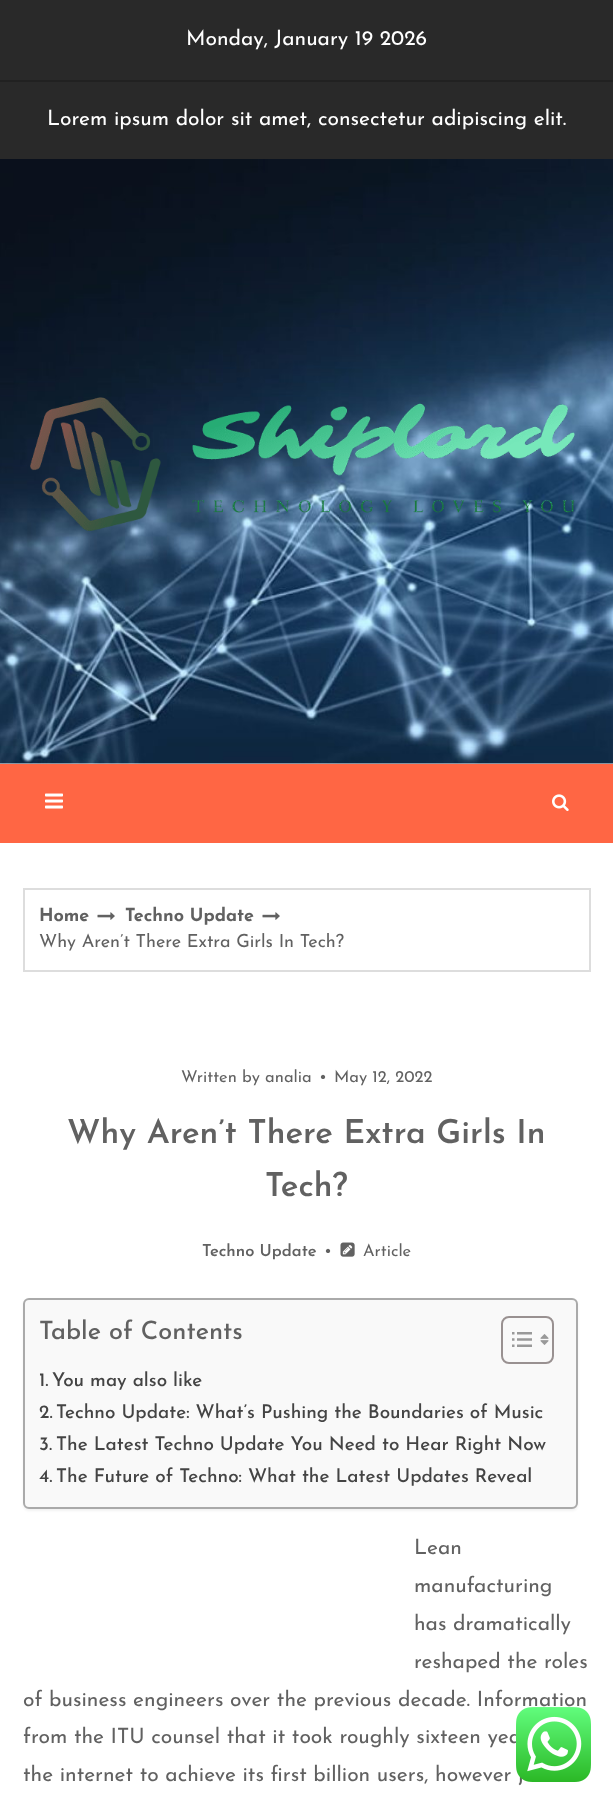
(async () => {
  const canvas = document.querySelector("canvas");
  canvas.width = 613;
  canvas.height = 1804;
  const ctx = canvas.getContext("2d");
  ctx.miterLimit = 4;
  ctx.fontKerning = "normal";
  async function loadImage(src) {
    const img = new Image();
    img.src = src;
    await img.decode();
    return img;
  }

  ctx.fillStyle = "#ffffff";
  ctx.fillRect(0, 0, 613, 1804);
  ctx.fillStyle = "#292929";
  ctx.fillRect(0, 0, 613, 159);
  ctx.fillStyle = "#212121";
  ctx.fillRect(0, 80, 613, 2);
  ctx.drawImage(await loadImage("img/1.png"), 0, 159, 613, 605);
  ctx.drawImage(await loadImage("img/2.png"), 30, 397, 545, 134);
  ctx.fillStyle = "#ff6644";
  ctx.fillRect(0, 764, 613, 79);
  ctx.drawImage(await loadImage("img/3.png"), 45, 793, 18, 16);
  ctx.drawImage(await loadImage("img/4.png"), 552, 794, 17, 18);
  ctx.strokeStyle = "#dddddd";
  ctx.lineWidth = 2;
  ctx.strokeRect(24, 889, 566, 82);
  ctx.drawImage(await loadImage("img/5.png"), 97, 912, 18, 8);
  ctx.drawImage(await loadImage("img/5.png"), 262, 912, 18, 8);
  ctx.drawImage(await loadImage("img/6.png"), 340, 1242, 15, 15);
  ctx.fillStyle = "rgba(0, 0, 0, 0.05)";
  ctx.filter = "blur(1px)";
  ctx.beginPath();
  ctx.roundRect(23, 1299, 555, 212, 6);
  ctx.fill();
  ctx.filter = "none";
  ctx.fillStyle = "#f9f9f9";
  ctx.beginPath();
  ctx.roundRect(24, 1299, 553, 209, 5);
  ctx.fill();
  ctx.strokeStyle = "#aaaaaa";
  ctx.stroke();
  ctx.beginPath();
  ctx.roundRect(502, 1317, 51, 46, 7);
  ctx.strokeStyle = "#999191";
  ctx.stroke();
  ctx.drawImage(await loadImage("img/7.png"), 512, 1332, 20, 15);
  ctx.drawImage(await loadImage("img/8.png"), 540, 1334, 9, 11);
  ctx.font = "21px Josefin Sans";
  ctx.fillStyle = "#ffffff";
  ctx.fillText("Monday, January 19 2026", 186, 45);
  ctx.fillText("Lorem ipsum dolor sit amet, consectetur adipiscing elit.", 47, 125);
  ctx.font = "bold 18px Josefin Sans";
  ctx.fillStyle = "#616161";
  ctx.fillText("Home", 39, 921);
  ctx.fillText("Techno Update", 125, 921);
  ctx.font = "18px Josefin Sans";
  ctx.fillText("Why Aren’t There Extra Girls In Tech?", 39, 947);
  ctx.font = "16.5px Josefin Sans";
  for (const [text, x, y] of [
    ["Written by analia", 181, 1082],
    ["•", 319, 1082],
    ["May 12, 2022", 334, 1082],
  ]) {
    ctx.fillText(text, x, y);
  }
  ctx.font = "600 33px Josefin Sans";
  ctx.fillText("Why Aren’t There Extra Girls In", 67, 1143);
  ctx.fillText("Tech?", 265, 1196);
  ctx.font = "600 16.5px Josefin Sans";
  ctx.fillText("Techno Update", 202, 1256);
  ctx.font = "16.5px Josefin Sans";
  ctx.fillText("•", 324, 1256);
  ctx.fillText("Article", 363, 1256);
  ctx.font = "500 25.25px Josefin Sans";
  ctx.fillText("Table of Contents", 39, 1339);
  ctx.font = "500 18.95px Josefin Sans";
  ctx.fillStyle = "#444444";
  for (const [text, x, y] of [
    ["1.", 39, 1386],
    ["You may also like", 52, 1386],
    ["2.", 39, 1418],
    ["Techno Update: What’s Pushing the Boundaries of Music", 56, 1418],
    ["3.", 39, 1450],
    ["The Latest Techno Update You Need to Hear Right Now", 56, 1450],
    ["4.", 39, 1482],
    ["The Future of Techno: What the Latest Updates Reveal", 56, 1482],
  ]) {
    ctx.fillText(text, x, y);
  }
  ctx.font = "21px Josefin Sans";
  ctx.fillStyle = "#616161";
  for (const [text, x, y] of [
    ["Lean", 414, 1554],
    ["manufacturing", 414, 1592],
    ["has dramatically", 414, 1630],
    ["reshaped the roles", 414, 1668],
    ["of business engineers over the previous decade. Information", 23, 1706],
    ["from the ITU counsel that it took roughly sixteen yea", 23, 1743],
    ["the internet to achieve its first billion users, however j", 23, 1781],
  ]) {
    ctx.fillText(text, x, y);
  }
  ctx.drawImage(await loadImage("img/9.png"), 516, 1707, 75, 75);
})();
